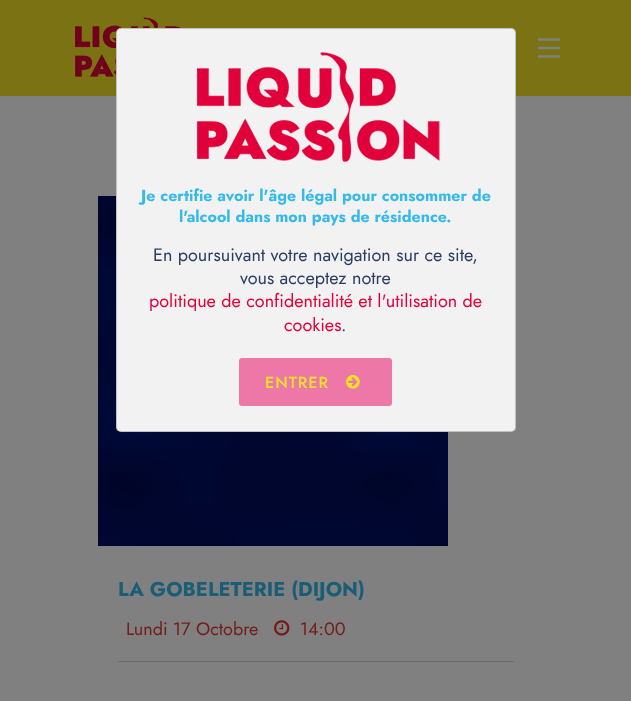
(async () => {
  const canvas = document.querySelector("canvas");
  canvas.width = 631;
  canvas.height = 701;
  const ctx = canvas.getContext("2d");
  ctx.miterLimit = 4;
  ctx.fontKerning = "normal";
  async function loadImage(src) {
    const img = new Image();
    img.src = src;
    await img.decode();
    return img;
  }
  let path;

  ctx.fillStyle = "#808080";
  ctx.fillRect(0, 0, 631, 701);
  ctx.fillStyle = "#7b7213";
  ctx.fillRect(0, 0, 631, 96);
  ctx.drawImage(await loadImage("img/3.png"), 75, 17, 106, 60);
  ctx.drawImage(await loadImage("img/4.png"), 98, 196, 350, 350);
  ctx.fillStyle = "#f2f2f2";
  ctx.beginPath();
  ctx.roundRect(116, 28, 400, 404, 5);
  ctx.fill();
  ctx.beginPath();
  ctx.roundRect(116.5, 28.5, 399, 403, 4.5);
  ctx.strokeStyle = "rgba(0, 0, 0, 0.2)";
  ctx.stroke();
  ctx.drawImage(await loadImage("img/1.png"), 197, 52, 243, 110);
  ctx.fillStyle = "#ed78a8";
  ctx.beginPath();
  ctx.roundRect(239, 358, 153, 48, 3);
  ctx.fill();
  ctx.drawImage(await loadImage("img/2.png"), 346, 375, 14, 14);
  path = new Path2D("M539 39.5H559M539 48H559M559 56.5H539");
  ctx.strokeStyle = "#808080";
  ctx.lineWidth = 2.5;
  ctx.lineCap = "round";
  ctx.stroke(path);
  ctx.drawImage(await loadImage("img/5.png"), 274, 620, 16, 16);
  ctx.fillStyle = "#6a6a6a";
  ctx.fillRect(118, 661, 396, 1);
  ctx.font = "bold 16px Jost";
  ctx.fillStyle = "#33baeb";
  ctx.fillText("Je certifie avoir l'âge légal pour consommer de", 141, 201);
  ctx.fillText("l'alcool dans mon pays de résidence.", 179, 222);
  ctx.font = "18px Jost";
  ctx.fillStyle = "#2b3d60";
  ctx.fillText("En poursuivant votre navigation sur ce site,", 153, 261);
  ctx.fillText("vous acceptez notre", 240, 284);
  ctx.fillStyle = "#e3003b";
  ctx.fillText("politique de confidentialité et l'utilisation de", 149, 307);
  ctx.fillText("cookies", 284, 331);
  ctx.fillStyle = "#2b3d60";
  ctx.fillText(".", 341, 331);
  ctx.letterSpacing = "1px";
  ctx.font = "500 16px Jost";
  ctx.fillStyle = "#f5e326";
  ctx.fillText("ENTRER", 265, 388);
  ctx.letterSpacing = "0px";
  ctx.font = "bold 20px Jost";
  ctx.fillStyle = "#1a5d76";
  ctx.fillText("LA GOBELETERIE (DIJON)", 118, 596);
  ctx.font = "18px Jost";
  ctx.fillStyle = "#721c19";
  ctx.fillText("Lundi 17 Octobre", 126, 635);
  ctx.fillText("14:00", 300, 635);
})();
